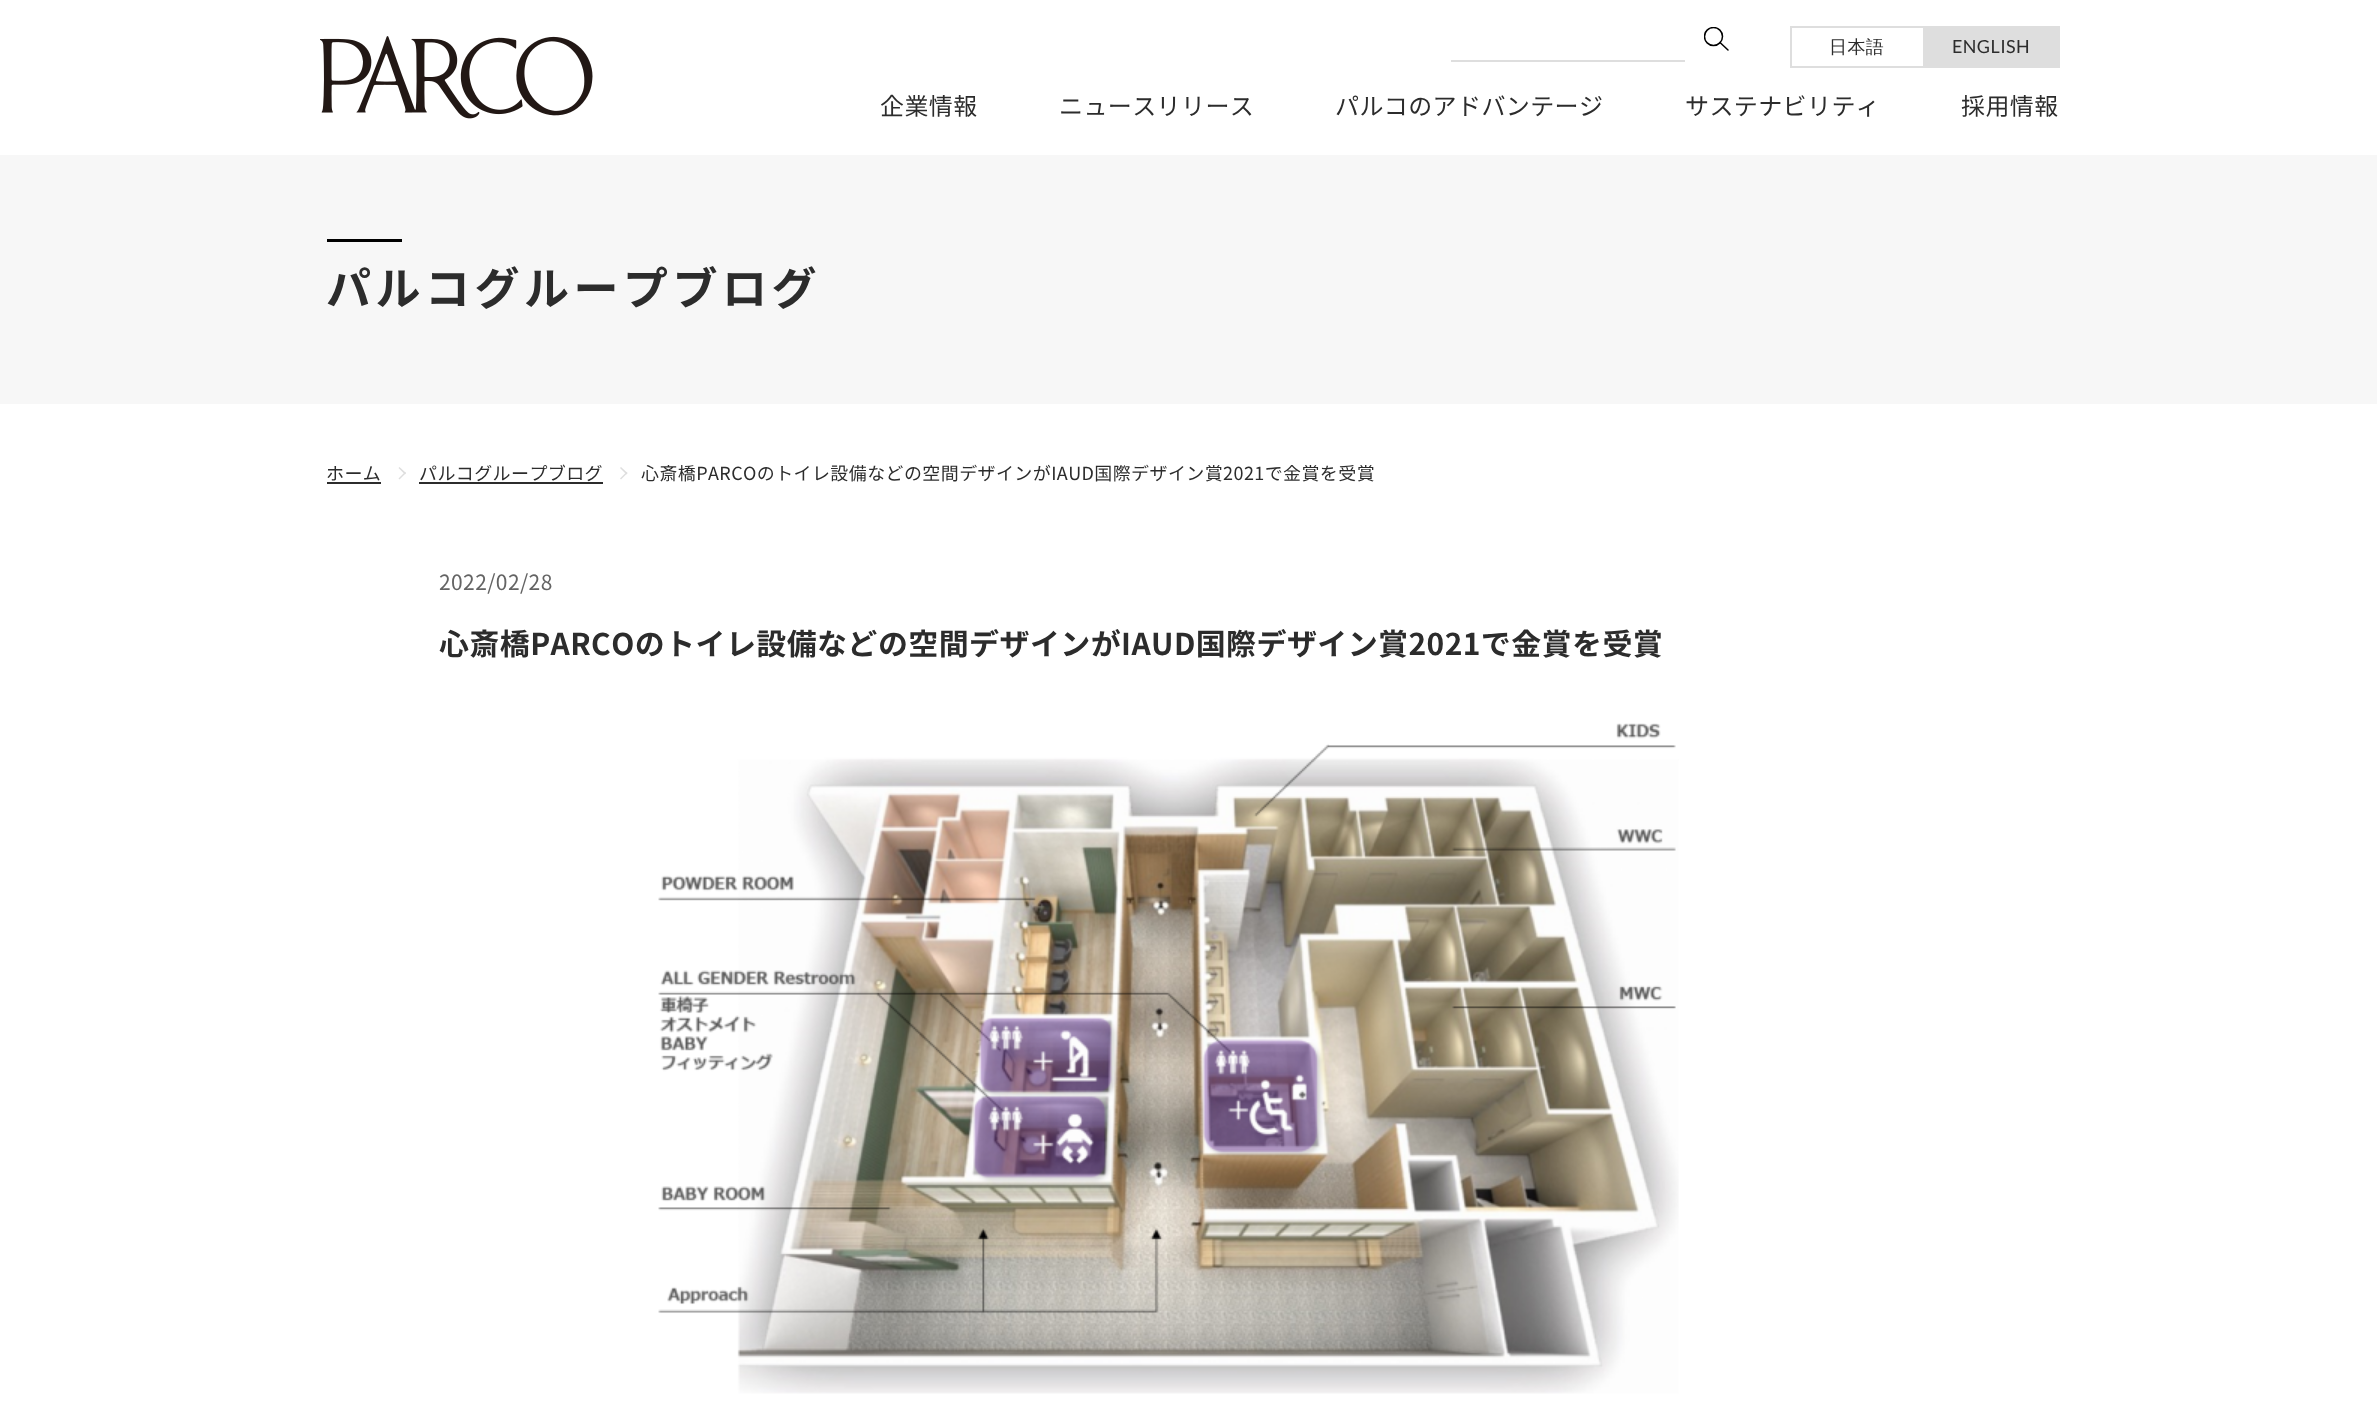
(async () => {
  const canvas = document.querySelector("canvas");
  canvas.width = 2377;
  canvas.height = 1411;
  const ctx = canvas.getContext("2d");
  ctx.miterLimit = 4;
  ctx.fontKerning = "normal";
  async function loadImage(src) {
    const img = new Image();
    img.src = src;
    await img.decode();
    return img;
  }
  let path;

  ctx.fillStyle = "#ffffff";
  ctx.fillRect(0, 0, 2377, 1411);
  ctx.drawImage(await loadImage("img/1.png"), 320, 36, 273, 83);
  ctx.save();
  ctx.beginPath();
  ctx.rect(1704, 27, 24, 24);
  ctx.clip();
  ctx.beginPath();
  ctx.arc(1713.5, 36.5, 9, 0, Math.PI * 2);
  ctx.strokeStyle = "#000000";
  ctx.lineWidth = 1.5;
  ctx.stroke();
  ctx.restore();
  path = new Path2D("M1728 50L1720 42.5");
  ctx.strokeStyle = "#000000";
  ctx.lineWidth = 1.5;
  ctx.lineCap = "round";
  ctx.lineJoin = "round";
  ctx.stroke(path);
  ctx.fillStyle = "#dedede";
  ctx.fillRect(1451, 60, 234, 2);
  ctx.strokeStyle = "#dedede";
  ctx.lineWidth = 2;
  ctx.lineJoin = "miter";
  ctx.strokeRect(1791, 27, 133, 40);
  for (const [x, y, w, h, color] of [
    [1925, 26, 135, 42, "#dedede"],
    [0, 155, 2377, 249, "#f7f7f7"],
    [327, 239, 75, 3, "#000000"],
    [327, 482, 54, 2, "#2c2c2c"],
  ]) {
    ctx.fillStyle = color;
    ctx.fillRect(x, y, w, h);
  }
  ctx.fillStyle = "#dedede";
  path = new Path2D("M399.5 467L406 473L405 474.5L398.5 468Z");
  ctx.fill(path);
  path = new Path2D("M405 472L406 473L399.5 479.5L398.5 478.5Z");
  ctx.fill(path);
  ctx.fillStyle = "#2c2c2c";
  ctx.fillRect(419, 482, 184, 2);
  ctx.fillStyle = "#dedede";
  path = new Path2D("M621 467L627.5 473L626.5 474.5L620 468Z");
  ctx.fill(path);
  path = new Path2D("M626.5 472L627.5 473L621 479.5L620 478.5Z");
  ctx.fill(path);
  ctx.drawImage(await loadImage("img/2.png"), 658, 723, 1021, 671);
  ctx.letterSpacing = "0.4px";
  ctx.font = "500 18px WenQuanYi Zen Hei";
  ctx.fillStyle = "#2c2c2c";
  ctx.fillText("日本語", 1829, 53);
  ctx.font = "18px Lato";
  ctx.fillText("ENGLISH", 1952, 53);
  ctx.font = "24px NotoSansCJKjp";
  for (const [text, x, y] of [
    ["企業情報", 880, 115],
    ["ニュースリリース", 1059, 115],
    ["パルコのアドバンテージ", 1335, 115],
    ["サステナビリティ", 1685, 115],
    ["採用情報", 1961, 115],
  ]) {
    ctx.fillText(text, x, y);
  }
  ctx.letterSpacing = "4.5px";
  ctx.font = "bold 45px NotoSansCJKjp";
  ctx.fillText("パルコグループブログ", 326, 305);
  ctx.letterSpacing = "0.4px";
  ctx.font = "18px NotoSansCJKjp";
  for (const [text, x, y] of [
    ["ホーム", 326, 480],
    ["パルコグループブログ", 419, 480],
    ["心斎橋PARCOのトイレ設備などの空間デザインがIAUD国際デザイン賞2021で金賞を受賞", 641, 480],
  ]) {
    ctx.fillText(text, x, y);
  }
  ctx.font = "21px NotoSansCJKjp";
  ctx.fillStyle = "#646464";
  ctx.fillText("2022/02/28", 439, 590);
  ctx.font = "bold 30px NotoSansCJKjp";
  ctx.fillStyle = "#2c2c2c";
  ctx.fillText("心斎橋PARCOのトイレ設備などの空間デザインがIAUD国際デザイン賞2021で金賞を受賞", 439, 655);
})();
